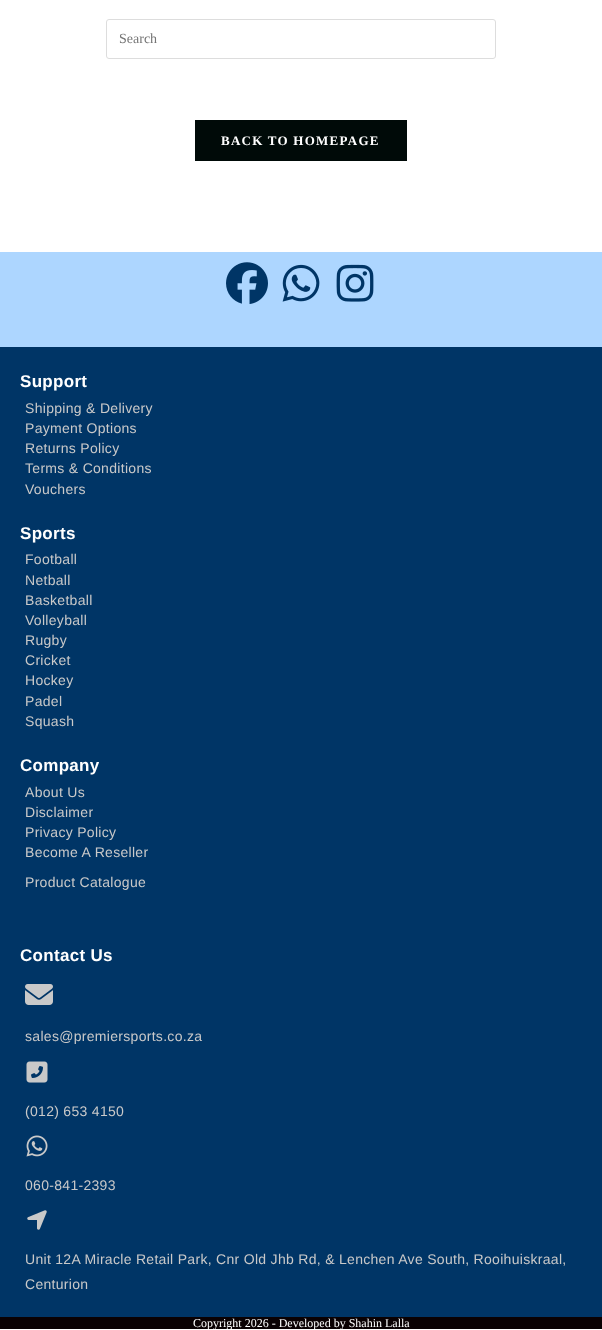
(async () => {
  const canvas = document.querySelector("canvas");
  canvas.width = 602;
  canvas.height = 1330;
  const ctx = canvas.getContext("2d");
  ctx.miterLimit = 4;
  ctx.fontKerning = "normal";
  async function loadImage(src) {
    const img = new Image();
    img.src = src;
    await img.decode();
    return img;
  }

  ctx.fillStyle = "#ffffff";
  ctx.fillRect(0, 0, 602, 1330);
  ctx.beginPath();
  ctx.roundRect(106.5, 19.5, 389, 39, 2.5);
  ctx.strokeStyle = "#dddddd";
  ctx.stroke();
  ctx.fillStyle = "#000a08";
  ctx.fillRect(195, 120, 212, 41);
  ctx.fillStyle = "#add6ff";
  ctx.fillRect(0, 252, 602, 95);
  ctx.drawImage(await loadImage("img/1.png"), 226, 262, 42, 42);
  ctx.drawImage(await loadImage("img/2.png"), 282, 264, 38, 38);
  ctx.drawImage(await loadImage("img/3.png"), 336, 264, 38, 38);
  ctx.fillStyle = "#003566";
  ctx.fillRect(0, 347, 602, 970);
  ctx.drawImage(await loadImage("img/4.png"), 25, 984, 28, 21);
  ctx.drawImage(await loadImage("img/5.png"), 26, 1061, 22, 22);
  ctx.drawImage(await loadImage("img/6.png"), 26, 1135, 22, 22);
  ctx.drawImage(await loadImage("img/7.png"), 27, 1210, 20, 20);
  ctx.fillStyle = "#0a0103";
  ctx.fillRect(0, 1317, 602, 12);
  ctx.font = "14px Liberation Serif";
  ctx.fillStyle = "#757575";
  ctx.fillText("Search", 119, 43);
  ctx.letterSpacing = "1.25px";
  ctx.font = "bold 13px Liberation Serif";
  ctx.fillStyle = "#ffffff";
  ctx.fillText("BACK TO HOMEPAGE", 221, 145);
  ctx.letterSpacing = "0.3px";
  ctx.font = "bold 17px Liberation Sans";
  ctx.fillText("Support", 20, 387);
  ctx.font = "14px Liberation Sans";
  ctx.fillStyle = "#c9c9c9";
  for (const [text, x, y] of [
    ["Shipping & Delivery", 25, 413],
    ["Payment Options", 25, 433],
    ["Returns Policy", 25, 453],
    ["Terms & Conditions", 25, 473],
    ["Vouchers", 25, 494],
  ]) {
    ctx.fillText(text, x, y);
  }
  ctx.font = "bold 17px Liberation Sans";
  ctx.fillStyle = "#ffffff";
  ctx.fillText("Sports", 20, 539);
  ctx.font = "14px Liberation Sans";
  ctx.fillStyle = "#c9c9c9";
  for (const [text, x, y] of [
    ["Football", 25, 564],
    ["Netball", 25, 585],
    ["Basketball", 25, 605],
    ["Volleyball", 25, 625],
    ["Rugby", 25, 645],
    ["Cricket", 25, 665],
    ["Hockey", 25, 685],
    ["Padel", 25, 706],
    ["Squash", 25, 726],
  ]) {
    ctx.fillText(text, x, y);
  }
  ctx.font = "bold 17px Liberation Sans";
  ctx.fillStyle = "#ffffff";
  ctx.fillText("Company", 20, 771);
  ctx.font = "14px Liberation Sans";
  ctx.fillStyle = "#c9c9c9";
  for (const [text, x, y] of [
    ["About Us", 25, 797],
    ["Disclaimer", 25, 817],
    ["Privacy Policy", 25, 837],
    ["Become A Reseller", 25, 857],
    ["Product Catalogue", 25, 887],
  ]) {
    ctx.fillText(text, x, y);
  }
  ctx.font = "bold 17px Liberation Sans";
  ctx.fillStyle = "#ffffff";
  ctx.fillText("Contact Us", 20, 961);
  ctx.font = "14px Liberation Sans";
  ctx.fillStyle = "#c9c9c9";
  for (const [text, x, y] of [
    ["sales@premiersports.co.za", 25, 1041],
    ["(012) 653 4150", 25, 1116],
    ["060-841-2393", 25, 1190],
    ["Unit 12A Miracle Retail Park, Cnr Old Jhb Rd, & Lenchen Ave South, Rooihuiskraal,", 25, 1264],
    ["Centurion", 25, 1289],
  ]) {
    ctx.fillText(text, x, y);
  }
  ctx.letterSpacing = "0px";
  ctx.font = "12px Liberation Serif";
  ctx.fillStyle = "#ffffff";
  ctx.fillText("Copyright 2026 - Developed by Shahin Lalla", 193, 1327);
})();
